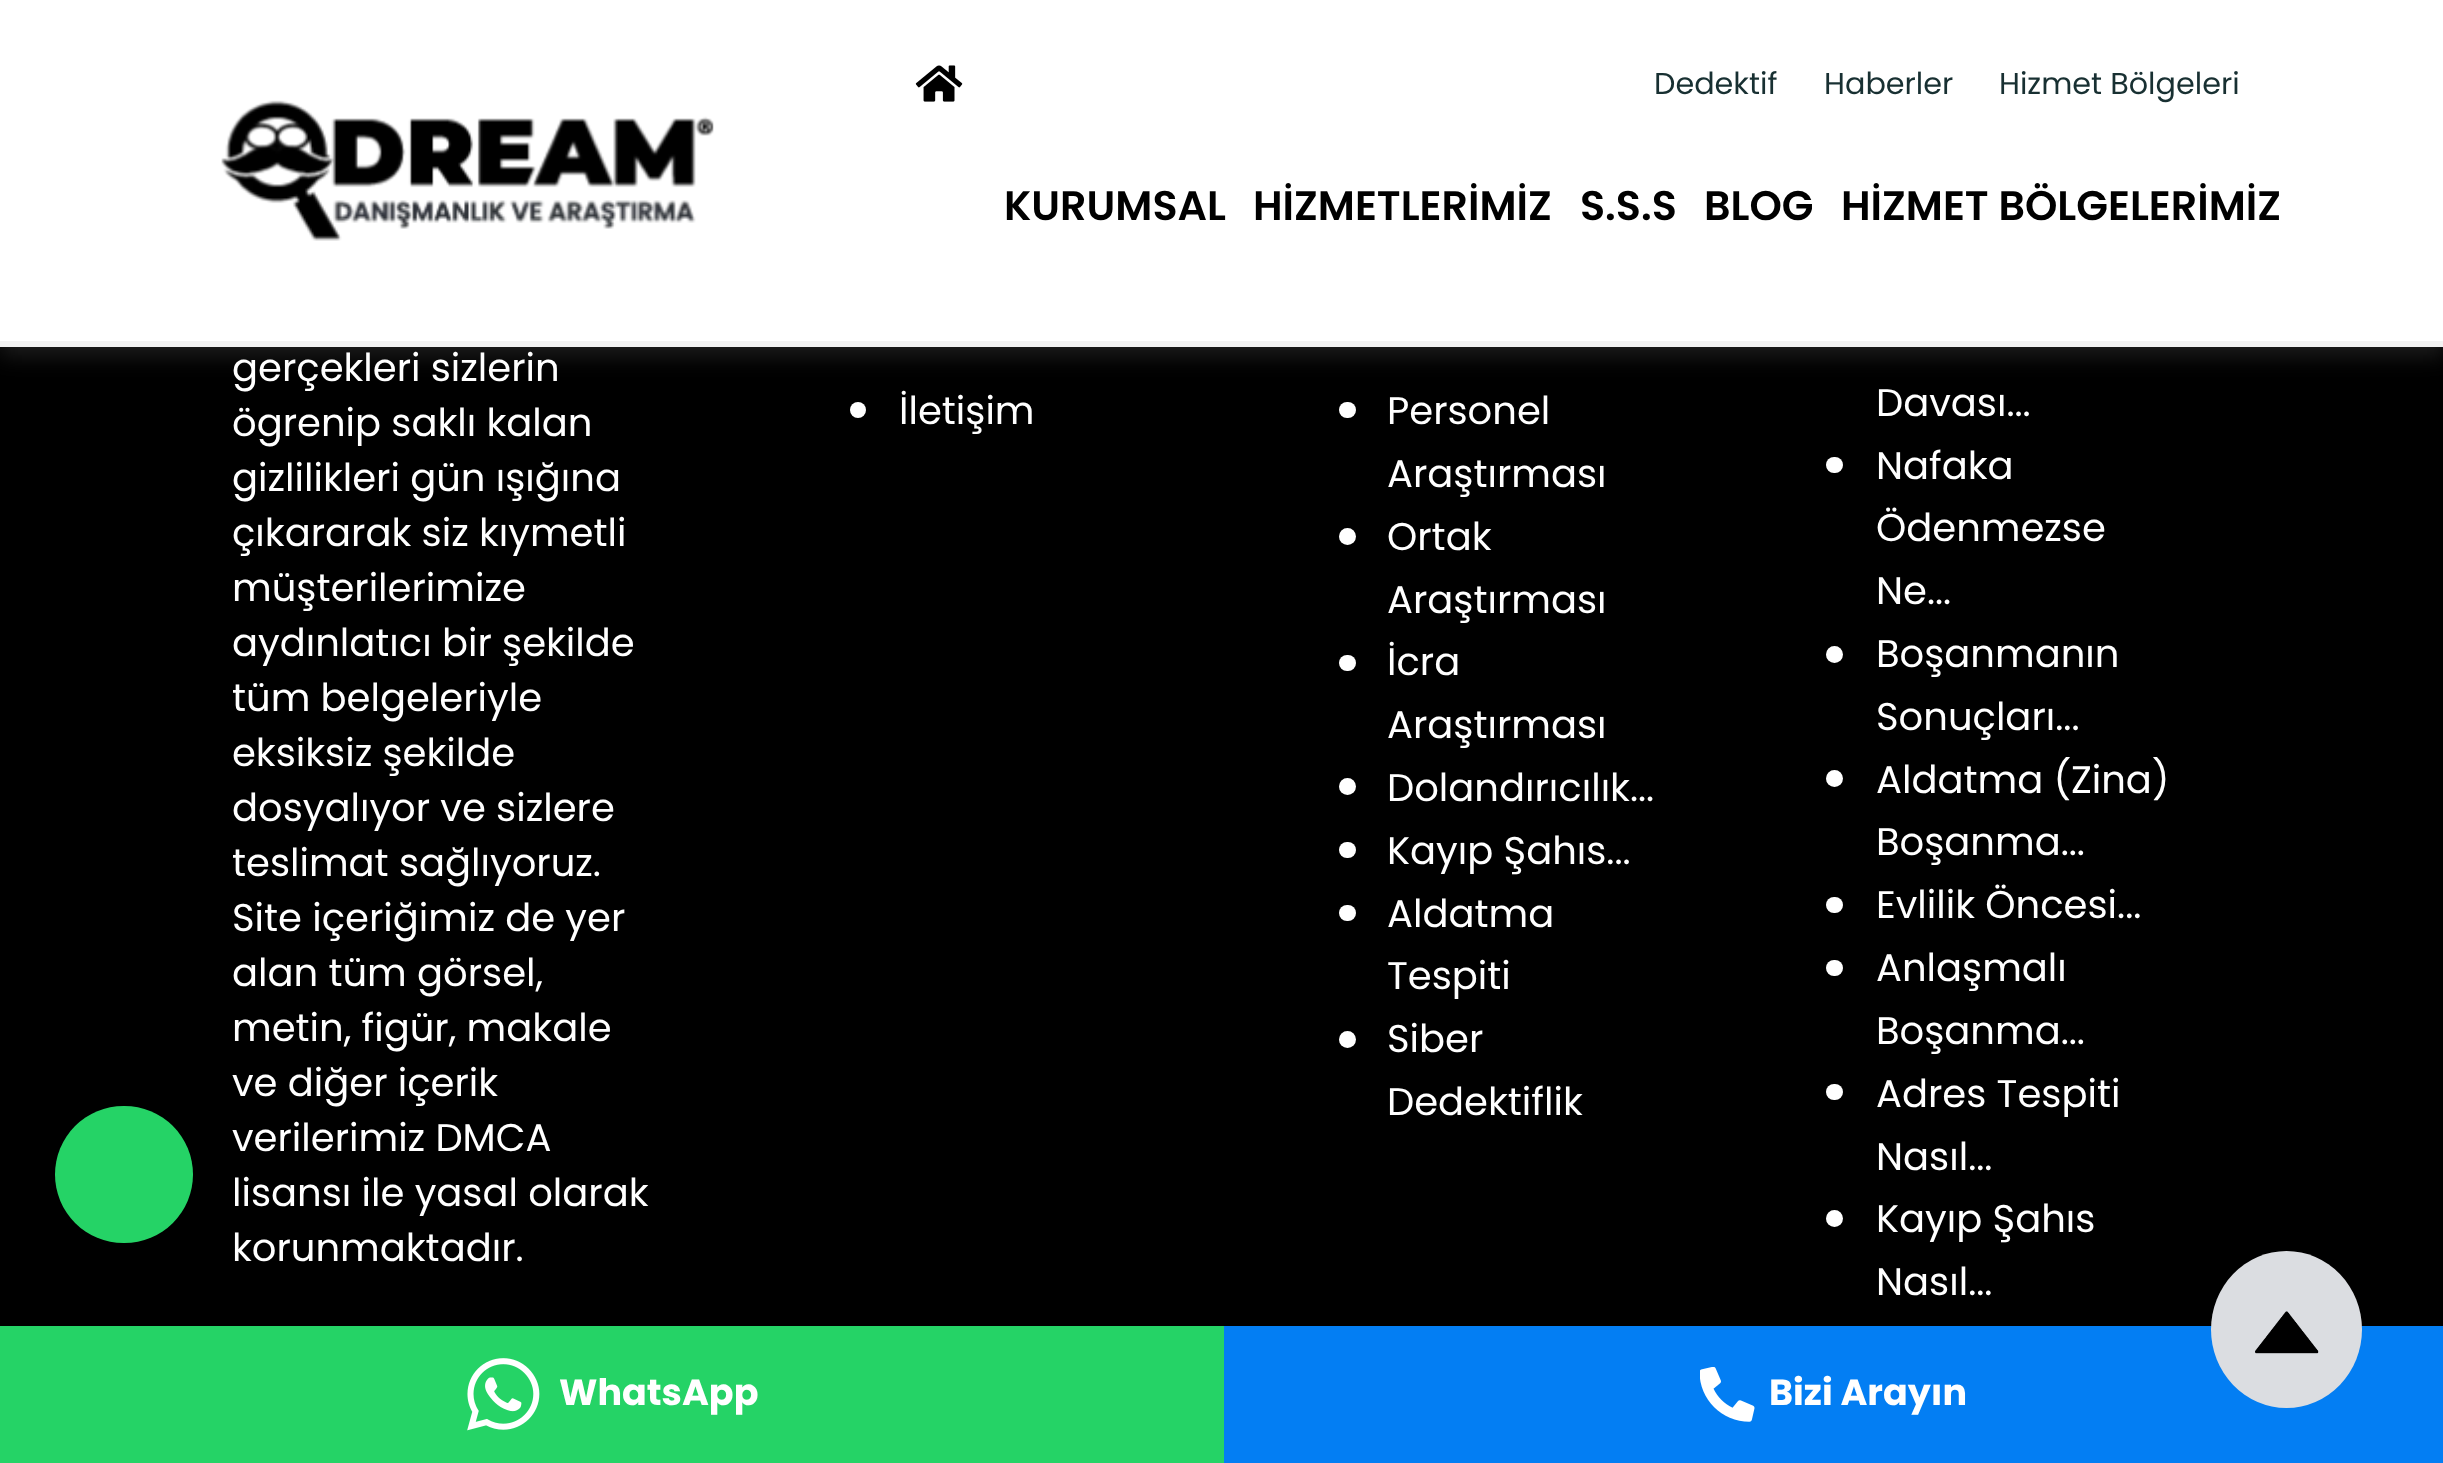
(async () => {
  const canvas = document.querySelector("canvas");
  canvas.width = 2443;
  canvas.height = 1463;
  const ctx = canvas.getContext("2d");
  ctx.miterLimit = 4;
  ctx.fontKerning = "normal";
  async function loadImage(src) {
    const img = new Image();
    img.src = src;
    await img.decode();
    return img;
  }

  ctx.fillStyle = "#000000";
  ctx.fillRect(0, 0, 2443, 1463);
  ctx.fillStyle = "rgba(50, 50, 50, 0.62)";
  ctx.filter = "blur(11px)";
  ctx.beginPath();
  ctx.rect(0, 8, 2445, 347);
  ctx.fill();
  ctx.filter = "none";
  ctx.fillStyle = "#ffffff";
  ctx.fillRect(0, 0, 2443, 341);
  ctx.fillStyle = "#f2f2f2";
  ctx.fillRect(0, 341, 2443, 6);
  ctx.drawImage(await loadImage("img/1.png"), 221, 100, 493, 141);
  ctx.drawImage(await loadImage("img/2.png"), 915, 65, 48, 37);
  ctx.fillStyle = "#25d366";
  ctx.beginPath();
  ctx.roundRect(55, 1106, 138, 137, 68.5);
  ctx.fill();
  ctx.fillStyle = "#ffffff";
  ctx.beginPath();
  ctx.arc(858, 410, 8, 0, Math.PI * 2);
  ctx.fill();
  ctx.beginPath();
  ctx.roundRect(1339, 402, 17, 16, 8);
  ctx.fill();
  ctx.beginPath();
  ctx.arc(1347.5, 536.5, 8.5, 0, Math.PI * 2);
  ctx.fill();
  ctx.beginPath();
  ctx.roundRect(1339, 655, 17, 16, 8);
  ctx.fill();
  ctx.beginPath();
  ctx.arc(1347.5, 786.5, 8.5, 0, Math.PI * 2);
  ctx.fill();
  ctx.beginPath();
  ctx.roundRect(1339, 842, 17, 16, 8);
  ctx.fill();
  ctx.beginPath();
  ctx.roundRect(1339, 905, 17, 16, 8);
  ctx.fill();
  ctx.beginPath();
  ctx.arc(1347.5, 1039.5, 8.5, 0, Math.PI * 2);
  ctx.fill();
  ctx.beginPath();
  ctx.roundRect(1826, 457, 17, 16, 8);
  ctx.fill();
  ctx.beginPath();
  ctx.arc(1834.5, 654.5, 8.5, 0, Math.PI * 2);
  ctx.fill();
  ctx.beginPath();
  ctx.arc(1834.5, 778.5, 8.5, 0, Math.PI * 2);
  ctx.fill();
  ctx.beginPath();
  ctx.roundRect(1826, 897, 17, 16, 8);
  ctx.fill();
  ctx.beginPath();
  ctx.roundRect(1826, 960, 17, 16, 8);
  ctx.fill();
  ctx.beginPath();
  ctx.roundRect(1826, 1084, 17, 16, 8);
  ctx.fill();
  ctx.beginPath();
  ctx.arc(1834.5, 1218.5, 8.5, 0, Math.PI * 2);
  ctx.fill();
  ctx.fillStyle = "#25d366";
  ctx.fillRect(0, 1326, 1224, 137);
  ctx.drawImage(await loadImage("img/3.png"), 467, 1358, 73, 73);
  ctx.fillStyle = "#037ef3";
  ctx.fillRect(1224, 1326, 1219, 137);
  ctx.drawImage(await loadImage("img/4.png"), 1700, 1367, 55, 55);
  ctx.fillStyle = "#dbdde1";
  ctx.beginPath();
  ctx.ellipse(2286.5, 1329.5, 75.5, 78.5, 0, 0, Math.PI * 2);
  ctx.fill();
  ctx.drawImage(await loadImage("img/5.png"), 2255, 1311, 64, 43);
  ctx.font = "30.25px Poppins";
  ctx.fillStyle = "#183032";
  for (const [text, x, y] of [
    ["Dedektif", 1654, 94],
    ["Haberler", 1824, 94],
    ["Hizmet Bölgeleri", 1999, 94],
  ]) {
    ctx.fillText(text, x, y);
  }
  ctx.font = "600 41.25px Poppins";
  ctx.fillStyle = "#000000";
  for (const [text, x, y] of [
    ["KURUMSAL", 1004, 220],
    ["HİZMETLERİMİZ", 1253, 220],
    ["S.S.S", 1580, 220],
    ["BLOG", 1704, 220],
    ["HİZMET BÖLGELERİMİZ", 1841, 220],
  ]) {
    ctx.fillText(text, x, y);
  }
  ctx.font = "38.5px Poppins";
  ctx.fillStyle = "#ffffff";
  for (const [text, x, y] of [
    ["gerçekleri sizlerin", 232, 381],
    ["ögrenip saklı kalan", 232, 436],
    ["gizlilikleri gün ışığına", 232, 491],
    ["çıkararak siz kıymetli", 232, 546],
    ["müşterilerimize", 232, 601],
    ["aydınlatıcı bir şekilde", 232, 656],
    ["tüm belgeleriyle", 232, 711],
    ["eksiksiz şekilde", 232, 766],
    ["dosyalıyor ve sizlere", 232, 821],
    ["teslimat sağlıyoruz.", 232, 876],
    ["Site içeriğimiz de yer", 232, 931],
    ["alan tüm görsel,", 232, 986],
    ["metin, figür, makale", 232, 1041],
    ["ve diğer içerik", 232, 1096],
    ["verilerimiz DMCA", 232, 1151],
    ["lisansı ile yasal olarak", 232, 1206],
    ["korunmaktadır.", 232, 1261],
    ["İletişim", 899, 424],
    ["Personel", 1387, 424],
    ["Araştırması", 1387, 487],
    ["Ortak", 1387, 550],
    ["Araştırması", 1387, 613],
    ["İcra", 1387, 675],
    ["Araştırması", 1387, 738],
    ["Dolandırıcılık...", 1387, 801],
    ["Kayıp Şahıs...", 1387, 864],
    ["Aldatma", 1387, 927],
    ["Tespiti", 1387, 989],
    ["Siber", 1387, 1052],
    ["Dedektiflik", 1387, 1115],
    ["Davası...", 1876, 416],
    ["Nafaka", 1876, 479],
    ["Ödenmezse", 1876, 541],
    ["Ne...", 1876, 604],
    ["Boşanmanın", 1876, 667],
    ["Sonuçları...", 1876, 730],
    ["Aldatma (Zina)", 1876, 793],
    ["Boşanma...", 1876, 855],
    ["Evlilik Öncesi...", 1876, 918],
    ["Anlaşmalı", 1876, 981],
    ["Boşanma...", 1876, 1044],
    ["Adres Tespiti", 1876, 1107],
    ["Nasıl...", 1876, 1170],
    ["Kayıp Şahıs", 1876, 1232],
    ["Nasıl...", 1876, 1295],
  ]) {
    ctx.fillText(text, x, y);
  }
  ctx.font = "bold 36.5px Poppins";
  ctx.fillText("WhatsApp", 559, 1405);
  ctx.fillText("Bizi Arayın", 1769, 1405);
})();
